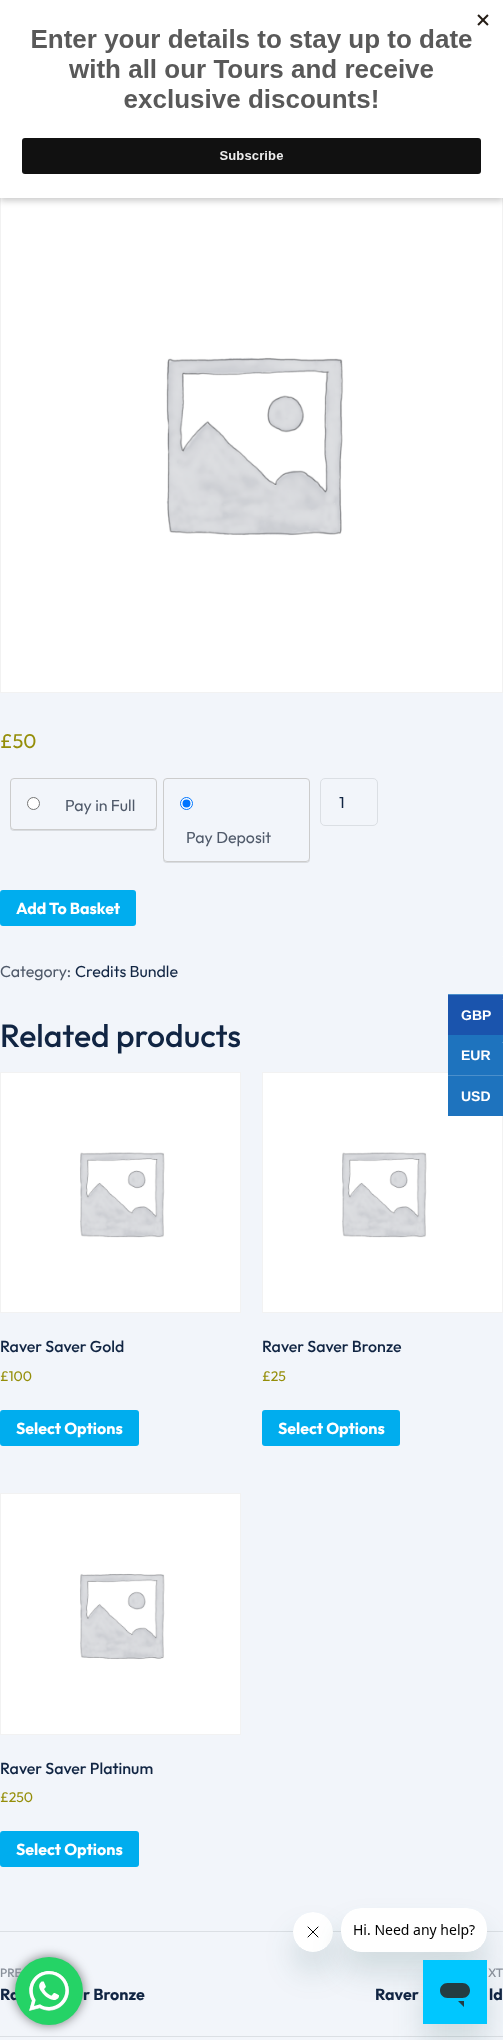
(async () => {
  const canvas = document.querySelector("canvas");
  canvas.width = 503;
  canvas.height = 2040;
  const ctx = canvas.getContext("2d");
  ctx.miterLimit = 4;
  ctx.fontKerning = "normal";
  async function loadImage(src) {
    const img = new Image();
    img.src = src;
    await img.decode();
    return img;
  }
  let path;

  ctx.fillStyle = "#f2f5fa";
  ctx.fillRect(0, 0, 503, 2040);
  ctx.strokeStyle = "#f2f2f2";
  ctx.strokeRect(0.5, 190.5, 502, 502);
  ctx.drawImage(await loadImage("img/2.png"), 1, 198, 501, 494);
  ctx.fillStyle = "rgba(0, 0, 0, 0.2)";
  ctx.filter = "blur(3px)";
  ctx.beginPath();
  ctx.rect(0, 3, 503, 198);
  ctx.fill();
  ctx.filter = "none";
  ctx.fillStyle = "#ffffff";
  ctx.fillRect(0, 0, 503, 198);
  ctx.drawImage(await loadImage("img/1.png"), 22, 14, 467, 160);
  ctx.save();
  path = new Path2D("M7 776H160V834H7ZM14 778H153C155 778 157 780 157 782V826C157 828 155 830 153 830H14C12 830 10 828 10 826V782C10 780 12 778 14 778Z");
  ctx.clip(path, "evenodd");
  ctx.fillStyle = "rgba(0, 0, 0, 0.1)";
  ctx.filter = "blur(0.5px)";
  ctx.beginPath();
  ctx.roundRect(10, 779, 147, 52, 4);
  ctx.fill();
  ctx.filter = "none";
  ctx.restore();
  ctx.beginPath();
  ctx.roundRect(10.5, 778.5, 146, 51, 3.5);
  ctx.strokeStyle = "#cccccc";
  ctx.stroke();
  ctx.beginPath();
  ctx.arc(33.5, 803.5, 6, 0, Math.PI * 2);
  ctx.fill();
  ctx.strokeStyle = "#767676";
  ctx.stroke();
  ctx.save();
  path = new Path2D("M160 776H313V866H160ZM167 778H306C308 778 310 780 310 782V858C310 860 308 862 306 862H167C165 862 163 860 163 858V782C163 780 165 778 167 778Z");
  ctx.clip(path, "evenodd");
  ctx.fillStyle = "rgba(0, 0, 0, 0.1)";
  ctx.filter = "blur(0.5px)";
  ctx.beginPath();
  ctx.roundRect(163, 779, 147, 84, 4);
  ctx.fill();
  ctx.filter = "none";
  ctx.restore();
  ctx.beginPath();
  ctx.roundRect(163.5, 778.5, 146, 83, 3.5);
  ctx.strokeStyle = "#cccccc";
  ctx.stroke();
  ctx.beginPath();
  ctx.arc(186.5, 803.5, 6, 0, Math.PI * 2);
  ctx.fill();
  ctx.strokeStyle = "#0075ff";
  ctx.stroke();
  ctx.fillStyle = "#0075ff";
  ctx.beginPath();
  ctx.arc(186.5, 803.5, 4, 0, Math.PI * 2);
  ctx.fill();
  ctx.beginPath();
  ctx.roundRect(320.5, 778.5, 57, 47, 4.5);
  ctx.strokeStyle = "#dbdfe4";
  ctx.stroke();
  ctx.fillStyle = "#00adee";
  ctx.beginPath();
  ctx.roundRect(0, 890, 136, 36, 3);
  ctx.fill();
  ctx.strokeStyle = "#f2f2f2";
  ctx.strokeRect(0.5, 1072.5, 240, 240);
  ctx.drawImage(await loadImage("img/3.png"), 1, 1073, 239, 239);
  ctx.beginPath();
  ctx.roundRect(0, 1410, 139, 36, 3);
  ctx.fill();
  ctx.strokeRect(262.5, 1072.5, 240, 240);
  ctx.drawImage(await loadImage("img/3.png"), 263, 1073, 239, 239);
  ctx.beginPath();
  ctx.roundRect(262, 1410, 138, 36, 3);
  ctx.fill();
  ctx.strokeRect(0.5, 1493.5, 240, 241);
  ctx.drawImage(await loadImage("img/4.png"), 1, 1494, 239, 240);
  ctx.beginPath();
  ctx.roundRect(0, 1831, 139, 36, 3);
  ctx.fill();
  for (const [x, y, w, h, color] of [
    [0, 1931, 503, 1, "#dbdfe4"],
    [0, 2036, 503, 1, "#dbdfe4"],
    [502, 956, 1, 1, "#f5f7fb"],
    [448, 995, 55, 40, "#1a54ad"],
    [502, 999, 1, 1, "#4876bd"],
    [448, 1035, 55, 81, "#1e73be"],
    [502, 1042, 1, 1, "#4b8fcb"],
    [448, 994, 55, 1, "#4b8fcb"],
    [448, 1075, 55, 1, "#4b8fcb"],
  ]) {
    ctx.fillStyle = color;
    ctx.fillRect(x, y, w, h);
  }
  ctx.fillStyle = "rgba(0, 0, 0, 0.5)";
  ctx.filter = "blur(5.5px)";
  ctx.beginPath();
  ctx.roundRect(15, 1957, 68, 68, 34);
  ctx.fill();
  ctx.filter = "none";
  ctx.fillStyle = "rgba(23, 73, 77, 0.15)";
  ctx.filter = "blur(15px)";
  ctx.beginPath();
  ctx.roundRect(293, 1932, 40, 40, 20);
  ctx.fill();
  ctx.filter = "none";
  ctx.drawImage(await loadImage("img/7.png"), 293, 1912, 40, 40);
  ctx.filter = "blur(15px)";
  ctx.beginPath();
  ctx.roundRect(341, 1928, 146, 44, 20);
  ctx.fill();
  ctx.filter = "none";
  ctx.drawImage(await loadImage("img/6.png"), 341, 1908, 146, 44);
  ctx.filter = "blur(15px)";
  ctx.beginPath();
  ctx.rect(423, 1980, 64, 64);
  ctx.fill();
  ctx.filter = "none";
  ctx.drawImage(await loadImage("img/8.png"), 423, 1960, 64, 64);
  ctx.font = "20px Outfit";
  ctx.fillStyle = "#958e09";
  ctx.fillText("£50", 0, 748);
  ctx.font = "16px Outfit";
  ctx.fillStyle = "#505a6a";
  ctx.fillText("Pay in Full", 65, 811);
  ctx.fillText("Pay Deposit", 186, 843);
  ctx.fillStyle = "#112543";
  ctx.fillText("1", 339, 808);
  ctx.font = "bold 16px Outfit";
  ctx.fillStyle = "#ffffff";
  ctx.fillText("Add To Basket", 16, 914);
  ctx.font = "16px Outfit";
  ctx.fillStyle = "#505a6a";
  ctx.fillText("Category:", 0, 977);
  ctx.fillStyle = "#112543";
  ctx.fillText("Credits Bundle", 75, 977);
  ctx.font = "500 32px Outfit";
  ctx.fillText("Related products", 0, 1047);
  ctx.font = "500 16px Outfit";
  ctx.fillText("Raver Saver Gold", 0, 1352);
  ctx.font = "14px Outfit";
  ctx.fillStyle = "#958e09";
  ctx.fillText("£100", 0, 1381);
  ctx.font = "bold 16px Outfit";
  ctx.fillStyle = "#ffffff";
  ctx.fillText("Select Options", 16, 1434);
  ctx.font = "500 16px Outfit";
  ctx.fillStyle = "#112543";
  ctx.fillText("Raver Saver Bronze", 262, 1352);
  ctx.font = "14px Outfit";
  ctx.fillStyle = "#958e09";
  ctx.fillText("£25", 262, 1381);
  ctx.font = "bold 16px Outfit";
  ctx.fillStyle = "#ffffff";
  ctx.fillText("Select Options", 278, 1434);
  ctx.font = "500 16px Outfit";
  ctx.fillStyle = "#112543";
  ctx.fillText("Raver Saver Platinum", 0, 1774);
  ctx.font = "14px Outfit";
  ctx.fillStyle = "#958e09";
  ctx.fillText("£250", 0, 1802);
  ctx.font = "bold 16px Outfit";
  ctx.fillStyle = "#ffffff";
  ctx.fillText("Select Options", 16, 1855);
  ctx.font = "500 12px Outfit";
  ctx.fillStyle = "#888f99";
  ctx.fillText("PRE", 0, 1977);
  ctx.font = "bold 16px Outfit";
  ctx.fillStyle = "#112543";
  ctx.fillText("Ra", 0, 2000);
  ctx.fillText("r Bronze", 83, 2000);
  ctx.font = "500 12px Outfit";
  ctx.fillStyle = "#888f99";
  ctx.fillText("XT", 488, 1977);
  ctx.font = "bold 16px Outfit";
  ctx.fillStyle = "#112543";
  ctx.fillText("Raver", 375, 2000);
  ctx.fillText("ld", 489, 2000);
  ctx.font = "bold 14px Liberation Sans";
  ctx.fillStyle = "#ffffff";
  for (const [text, x, y] of [
    ["GBP", 461, 1020],
    ["EUR", 461, 1060],
    ["USD", 461, 1101],
  ]) {
    ctx.fillText(text, x, y);
  }
  ctx.fillStyle = "#25d366";
  ctx.beginPath();
  ctx.arc(49, 1991, 34, 0, Math.PI * 2);
  ctx.fill();
  ctx.drawImage(await loadImage("img/5.png"), 29, 1971, 40, 40);
})();
